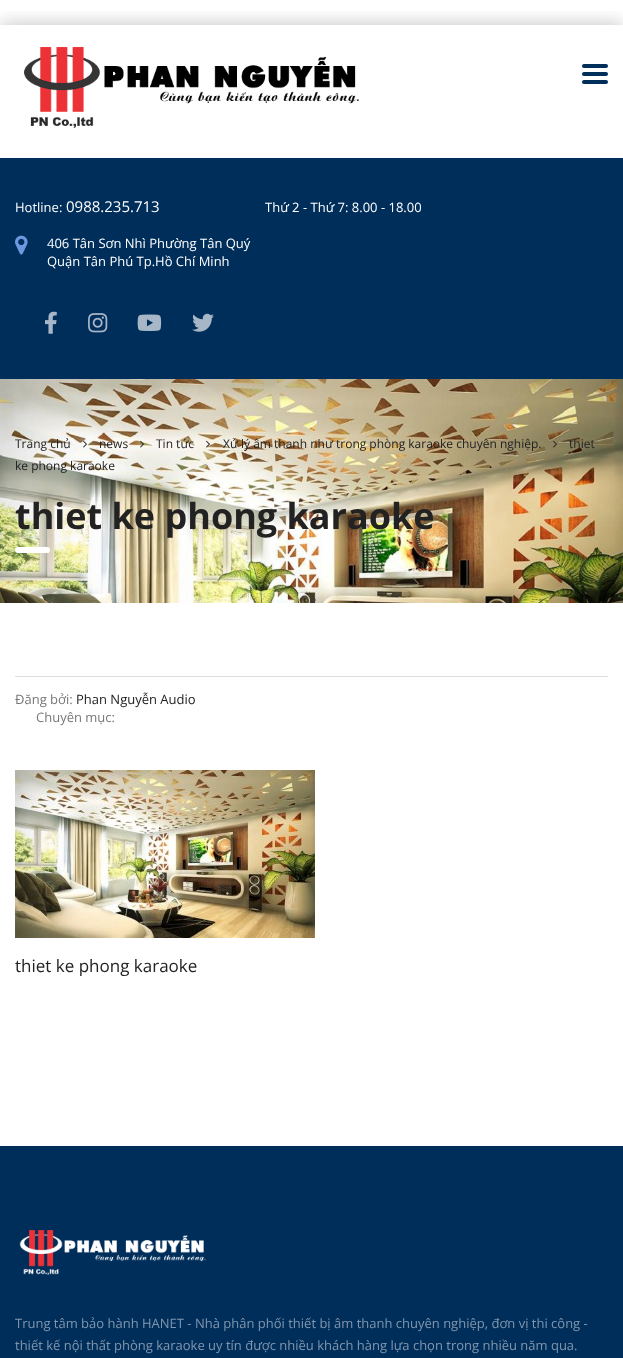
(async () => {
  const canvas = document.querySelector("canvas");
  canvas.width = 623;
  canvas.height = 1358;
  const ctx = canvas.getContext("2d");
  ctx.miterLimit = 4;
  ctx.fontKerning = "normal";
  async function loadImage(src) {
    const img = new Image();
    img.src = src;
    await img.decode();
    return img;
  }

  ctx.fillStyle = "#ffffff";
  ctx.fillRect(0, 0, 623, 1358);
  ctx.save();
  ctx.beginPath();
  ctx.rect(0, 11, 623, 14);
  ctx.clip();
  ctx.fillStyle = "rgba(0, 0, 0, 0.25)";
  ctx.filter = "blur(10px)";
  ctx.beginPath();
  ctx.rect(0, 25, 623, 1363);
  ctx.fill();
  ctx.filter = "none";
  ctx.restore();
  ctx.drawImage(await loadImage("img/1.png"), 24, 47, 335, 81);
  ctx.fillStyle = "#002e5b";
  ctx.beginPath();
  ctx.roundRect(582, 72, 26, 4, 2);
  ctx.fill();
  ctx.beginPath();
  ctx.roundRect(582, 64, 26, 4, 2);
  ctx.fill();
  ctx.beginPath();
  ctx.roundRect(582, 80, 26, 4, 2);
  ctx.fill();
  ctx.fillRect(0, 158, 623, 221);
  ctx.drawImage(await loadImage("img/2.png"), 15, 235, 13, 20);
  ctx.drawImage(await loadImage("img/3.png"), 45, 311, 12, 23);
  ctx.drawImage(await loadImage("img/4.png"), 88, 313, 20, 20);
  ctx.drawImage(await loadImage("img/5.png"), 137, 314, 25, 17);
  ctx.drawImage(await loadImage("img/6.png"), 192, 313, 22, 19);
  ctx.drawImage(await loadImage("img/7.png"), 0, 379, 623, 224);
  ctx.drawImage(await loadImage("img/8.png"), 83, 440, 4, 8);
  ctx.drawImage(await loadImage("img/9.png"), 140, 440, 4, 8);
  ctx.drawImage(await loadImage("img/10.png"), 206, 440, 4, 8);
  ctx.drawImage(await loadImage("img/11.png"), 553, 440, 4, 8);
  ctx.fillStyle = "#ffffff";
  ctx.beginPath();
  ctx.roundRect(15, 547, 35, 6, 3);
  ctx.fill();
  ctx.fillStyle = "#dddddd";
  ctx.fillRect(15, 676, 593, 1);
  ctx.drawImage(await loadImage("img/12.png"), 15, 770, 300, 168);
  ctx.fillStyle = "#002e5b";
  ctx.fillRect(0, 1146, 623, 212);
  ctx.drawImage(await loadImage("img/13.png"), 19, 1230, 187, 45);
  ctx.font = "13px Open Sans";
  ctx.fillStyle = "#ffffff";
  ctx.fillText("Hotline:", 15, 212);
  ctx.font = "15px Open Sans";
  ctx.fillText("0988.235.713", 66, 212);
  ctx.font = "13px Open Sans";
  for (const [text, x, y] of [
    ["Thứ 2 - Thứ 7: 8.00 - 18.00", 265, 212],
    ["406 Tân Sơn Nhì Phường Tân Quý", 47, 248],
    ["Quận Tân Phú Tp.Hồ Chí Minh", 47, 266],
  ]) {
    ctx.fillText(text, x, y);
  }
  ctx.font = "12px Open Sans";
  ctx.fillStyle = "#222222";
  for (const [text, x, y] of [
    ["Trang chủ", 15, 448],
    ["news", 99, 448],
    ["Tin tức", 156, 448],
    ["Xử lý âm thanh như trong phòng karaoke chuyên nghiệp.", 223, 448],
    ["thiet", 569, 448],
    ["ke phong karaoke", 15, 470],
  ]) {
    ctx.fillText(text, x, y);
  }
  ctx.font = "bold 36px Open Sans";
  ctx.fillText("thiet ke phong karaoke", 15, 529);
  ctx.font = "13px Open Sans";
  ctx.fillStyle = "#777777";
  ctx.fillText("Đăng bởi:", 15, 704);
  ctx.fillStyle = "#222222";
  ctx.fillText("Phan Nguyễn Audio", 76, 704);
  ctx.fillStyle = "#777777";
  ctx.fillText("Chuyên mục:", 36, 722);
  ctx.font = "17px Open Sans";
  ctx.fillStyle = "#222222";
  ctx.fillText("thiet ke phong karaoke", 15, 972);
  ctx.font = "13px Open Sans";
  ctx.fillStyle = "#8097ad";
  ctx.fillText("Trung tâm bảo hành HANET - Nhà phân phối thiết bị âm thanh chuyên nghiệp, đơn vị thi công -", 15, 1328);
  ctx.fillText("thiết kế nội thất phòng karaoke uy tín được nhiều khách hàng lựa chọn trong nhiều năm qua.", 15, 1350);
})();
